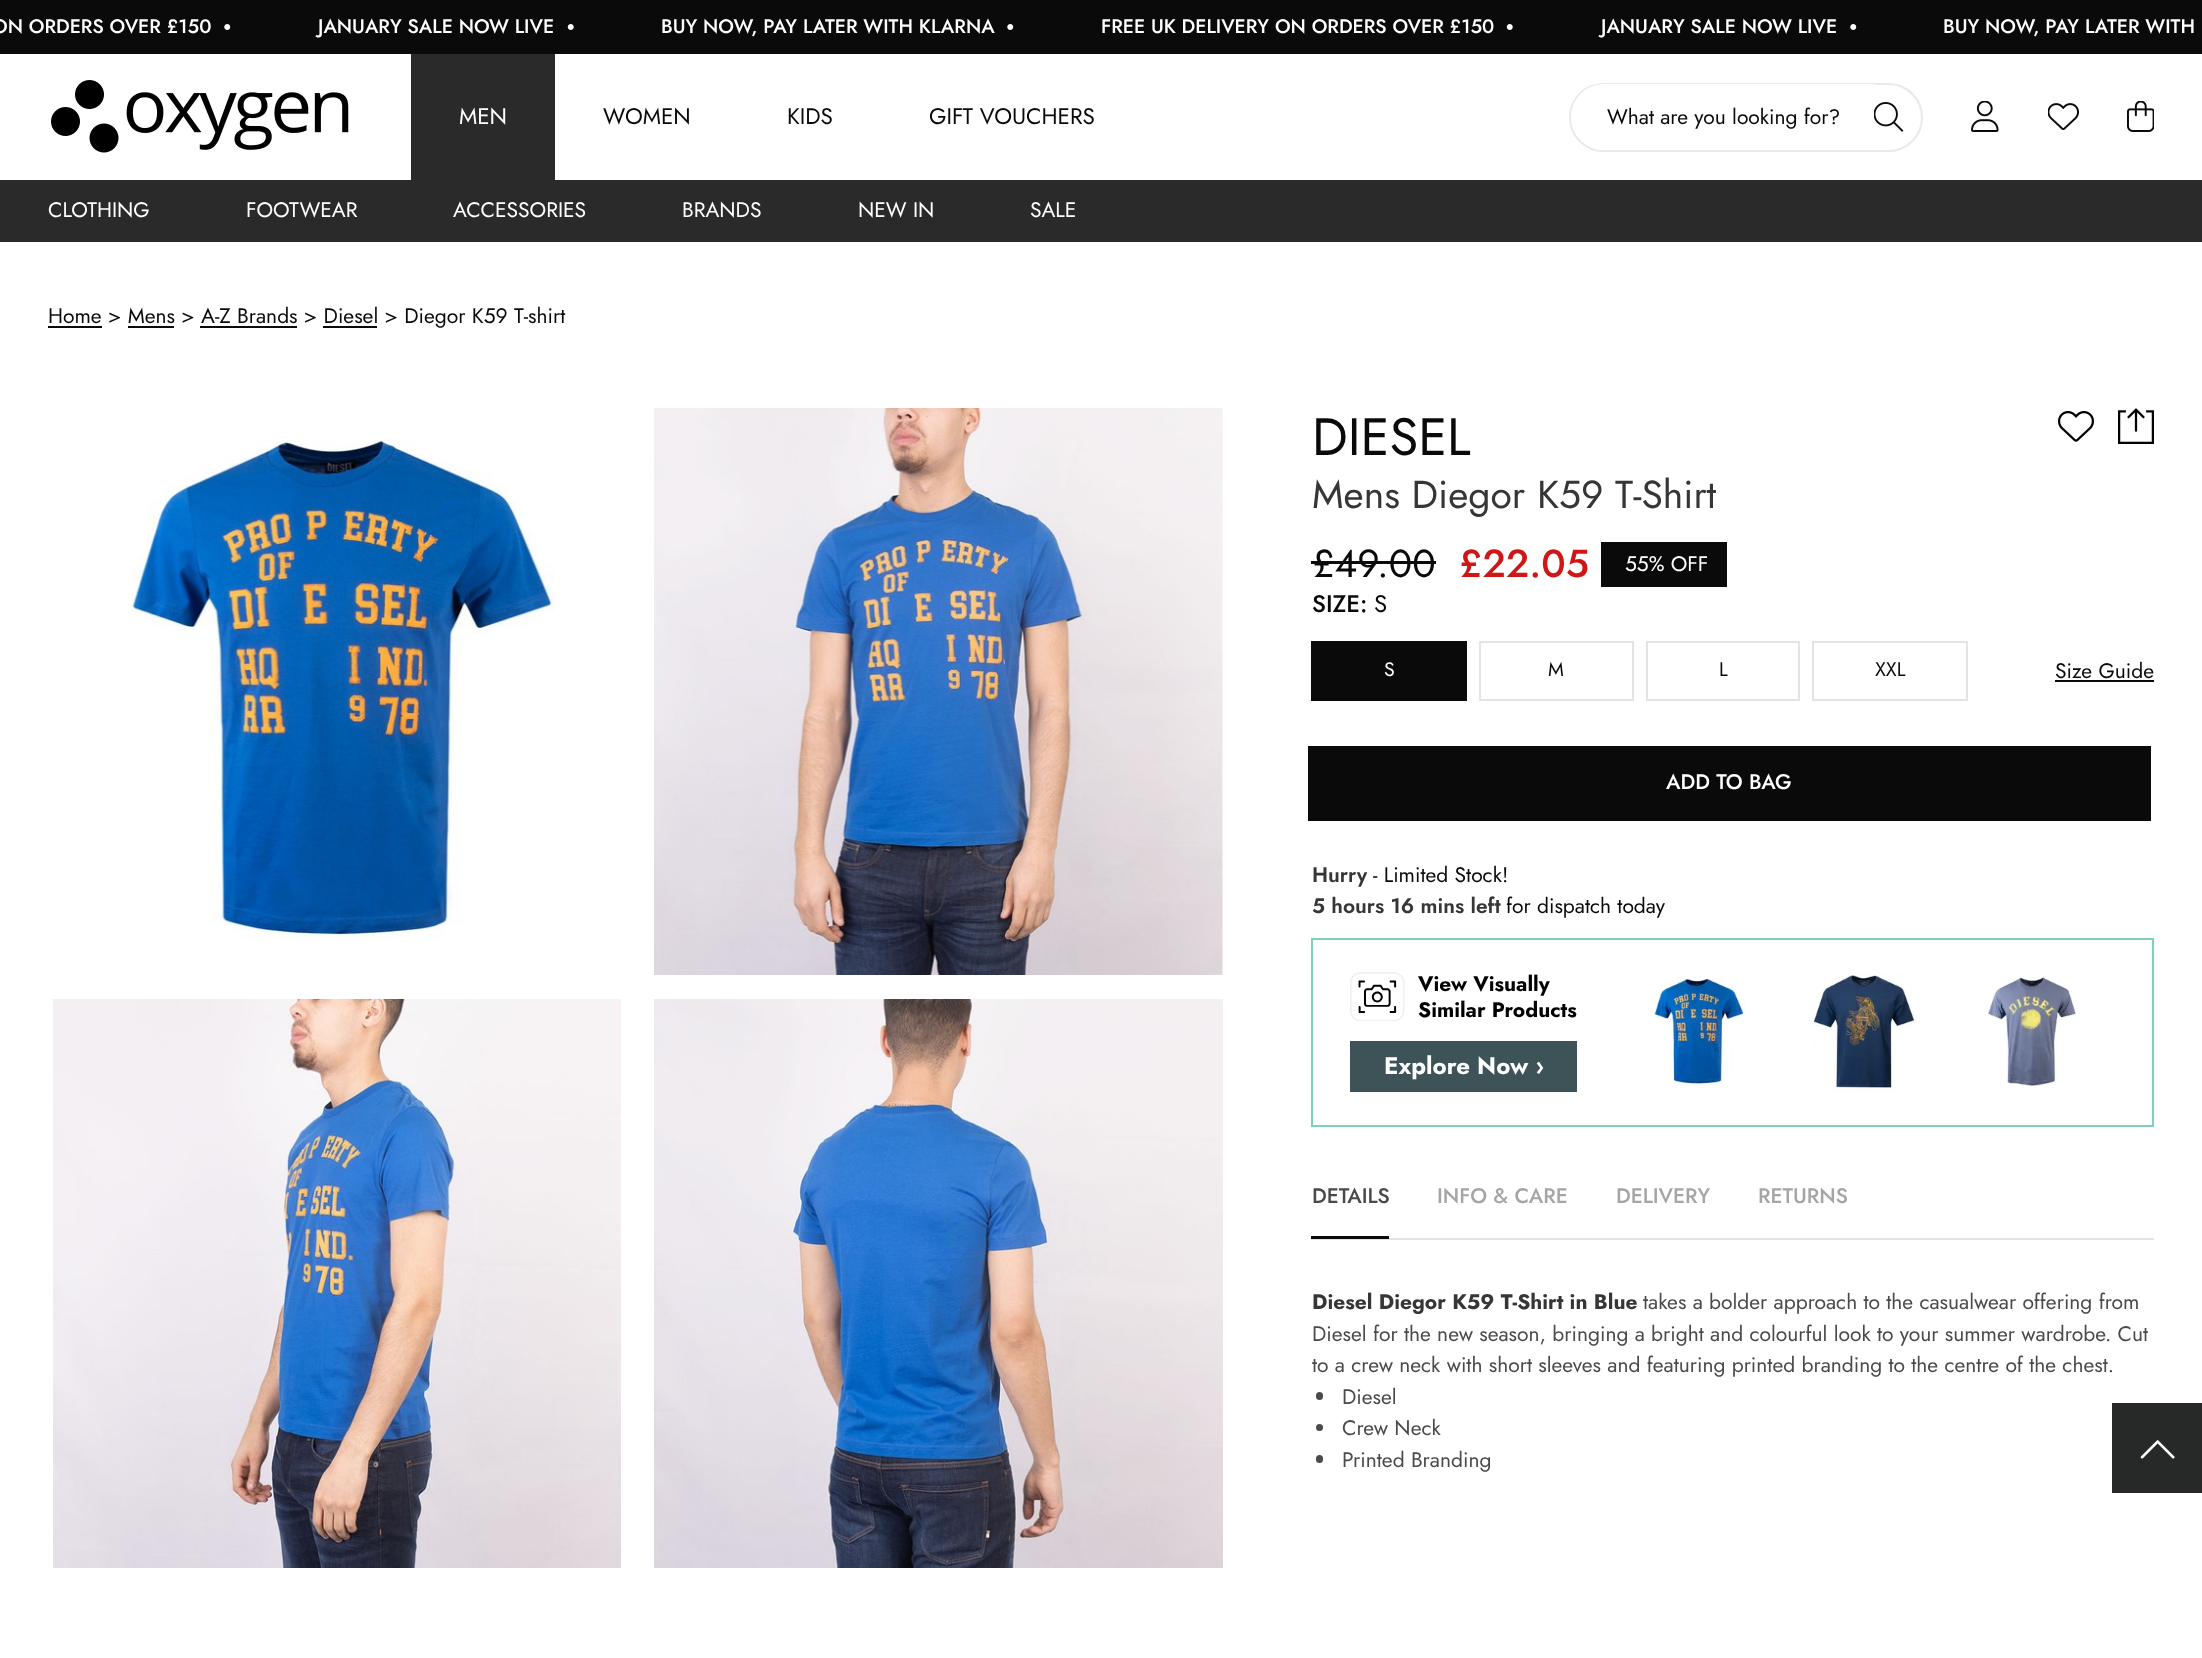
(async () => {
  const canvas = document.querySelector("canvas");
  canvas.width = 2202;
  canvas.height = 1658;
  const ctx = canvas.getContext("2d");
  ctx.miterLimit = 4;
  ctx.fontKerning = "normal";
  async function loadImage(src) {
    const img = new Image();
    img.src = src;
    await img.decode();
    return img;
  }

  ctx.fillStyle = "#ffffff";
  ctx.fillRect(0, 0, 2202, 1658);
  ctx.fillStyle = "#0a0a0a";
  ctx.fillRect(0, 0, 2202, 54);
  ctx.drawImage(await loadImage("img/1.png"), 224, 24, 7, 6);
  ctx.drawImage(await loadImage("img/2.png"), 567, 24, 7, 6);
  ctx.drawImage(await loadImage("img/1.png"), 1007, 24, 7, 6);
  ctx.drawImage(await loadImage("img/2.png"), 1506, 24, 7, 6);
  ctx.drawImage(await loadImage("img/1.png"), 1850, 24, 7, 6);
  ctx.drawImage(await loadImage("img/3.png"), 51, 80, 298, 73);
  ctx.fillStyle = "#2a2a2a";
  ctx.fillRect(411, 54, 144, 126);
  ctx.fillRect(0, 180, 2202, 62);
  ctx.beginPath();
  ctx.roundRect(1570, 84, 352, 67, 33.5);
  ctx.strokeStyle = "#e9e9ec";
  ctx.lineWidth = 2;
  ctx.stroke();
  ctx.fillStyle = "#ffffff";
  ctx.beginPath();
  ctx.roundRect(1571, 84, 333, 66, 33);
  ctx.fill();
  ctx.drawImage(await loadImage("img/4.png"), 1874, 102, 30, 30);
  ctx.drawImage(await loadImage("img/5.png"), 1971, 101, 28, 31);
  ctx.drawImage(await loadImage("img/6.png"), 2048, 103, 31, 27);
  ctx.drawImage(await loadImage("img/7.png"), 2127, 101, 27, 31);
  for (const [x, y, w, h, color] of [
    [48, 326, 54, 2, "#0a0a0a"],
    [128, 326, 46, 2, "#0a0a0a"],
    [200, 326, 97, 2, "#0a0a0a"],
    [323, 326, 54, 2, "#0a0a0a"],
  ]) {
    ctx.fillStyle = color;
    ctx.fillRect(x, y, w, h);
  }
  ctx.drawImage(await loadImage("img/8.png"), 131, 439, 424, 501);
  ctx.drawImage(await loadImage("img/9.png"), 654, 408, 569, 567);
  ctx.drawImage(await loadImage("img/10.png"), 53, 999, 568, 569);
  ctx.drawImage(await loadImage("img/11.png"), 654, 999, 569, 569);
  ctx.fillRect(1311, 561, 125, 3);
  ctx.fillRect(1601, 542, 126, 45);
  ctx.drawImage(await loadImage("img/12.png"), 2058, 411, 36, 31);
  ctx.drawImage(await loadImage("img/13.png"), 2118, 408, 36, 36);
  ctx.fillRect(1311, 641, 156, 60);
  ctx.strokeStyle = "#e4e4e4";
  ctx.strokeRect(1480, 642, 153, 58);
  ctx.strokeRect(1647, 642, 152, 58);
  ctx.strokeRect(1813, 642, 154, 58);
  ctx.fillRect(2055, 680, 99, 2);
  ctx.fillRect(1308, 746, 843, 75);
  ctx.strokeStyle = "#80d0b8";
  ctx.strokeRect(1312, 939, 841, 187);
  ctx.drawImage(await loadImage("img/14.png"), 1350, 972, 55, 49);
  ctx.fillStyle = "#3d5357";
  ctx.fillRect(1350, 1041, 227, 51);
  ctx.drawImage(await loadImage("img/15.png"), 1650, 978, 96, 109);
  ctx.drawImage(await loadImage("img/16.png"), 1812, 972, 106, 120);
  ctx.drawImage(await loadImage("img/17.png"), 1987, 976, 89, 110);
  ctx.fillStyle = "#e4e4e4";
  ctx.fillRect(1311, 1238, 843, 2);
  ctx.fillStyle = "#0a0a0a";
  ctx.fillRect(1311, 1236, 78, 3);
  ctx.fillStyle = "#4a4a4a";
  ctx.beginPath();
  ctx.roundRect(1316, 1392, 7, 8, 3.5);
  ctx.fill();
  ctx.beginPath();
  ctx.arc(1319.5, 1427.5, 3.5, 0, Math.PI * 2);
  ctx.fill();
  ctx.beginPath();
  ctx.roundRect(1316, 1455, 7, 8, 3.5);
  ctx.fill();
  ctx.fillStyle = "#272929";
  ctx.fillRect(2112, 1403, 90, 90);
  ctx.drawImage(await loadImage("img/18.png"), 2140, 1440, 35, 19);
  ctx.font = "500 19.5px Jost";
  ctx.fillStyle = "#ffffff";
  for (const [text, x, y] of [
    ["ON ORDERS OVER £150", -8, 33],
    ["JANUARY SALE NOW LIVE", 318, 33],
    ["BUY NOW, PAY LATER WITH KLARNA", 661, 33],
    ["FREE UK DELIVERY ON ORDERS OVER £150", 1101, 33],
    ["JANUARY SALE NOW LIVE", 1601, 33],
    ["BUY NOW, PAY LATER WITH", 1943, 33],
  ]) {
    ctx.fillText(text, x, y);
  }
  ctx.font = "22.5px Jost";
  ctx.fillText("MEN", 459, 124);
  ctx.font = "21px Jost";
  for (const [text, x, y] of [
    ["CLOTHING", 48, 217],
    ["FOOTWEAR", 246, 217],
    ["ACCESSORIES", 453, 217],
    ["BRANDS", 682, 217],
    ["NEW IN", 858, 217],
    ["SALE", 1030, 217],
  ]) {
    ctx.fillText(text, x, y);
  }
  ctx.font = "22.5px Jost";
  ctx.fillStyle = "#0a0a0a";
  for (const [text, x, y] of [
    ["WOMEN", 603, 124],
    ["KIDS", 787, 124],
    ["GIFT VOUCHERS", 929, 124],
  ]) {
    ctx.fillText(text, x, y);
  }
  ctx.font = "21px Jost";
  ctx.fillText("What are you looking for?", 1607, 124);
  ctx.fillText("Home > Mens > A-Z Brands > Diesel > Diegor K59 T-shirt", 48, 323);
  ctx.font = "52.5px Jost";
  ctx.fillText("DIESEL", 1312, 455);
  ctx.font = "39px Jost";
  ctx.fillStyle = "#363636";
  ctx.fillText("Mens Diegor K59 T-Shirt", 1312, 508);
  ctx.fillStyle = "#0a0a0a";
  ctx.fillText("£49.00", 1312, 577);
  ctx.font = "500 39px Jost";
  ctx.fillStyle = "#cf1717";
  ctx.fillText("£22.05", 1459, 577);
  ctx.font = "21px Jost";
  ctx.fillStyle = "#ffffff";
  ctx.fillText("55% OFF", 1625, 571);
  ctx.font = "500 24px Jost";
  ctx.fillStyle = "#0a0a0a";
  ctx.fillText("SIZE:", 1312, 612);
  ctx.font = "24px Jost";
  ctx.fillText("S", 1374, 612);
  ctx.font = "19.5px Jost";
  ctx.fillStyle = "#ffffff";
  ctx.fillText("S", 1384, 676);
  ctx.fillStyle = "#0a0a0a";
  for (const [text, x, y] of [
    ["M", 1548, 676],
    ["L", 1719, 676],
    ["XXL", 1875, 676],
  ]) {
    ctx.fillText(text, x, y);
  }
  ctx.font = "21px Jost";
  ctx.fillText("Size Guide", 2055, 678);
  ctx.font = "500 21px Jost";
  ctx.fillStyle = "#ffffff";
  ctx.fillText("ADD TO BAG", 1666, 789);
  ctx.font = "600 21px Jost";
  ctx.fillStyle = "#363636";
  ctx.fillText("Hurry", 1312, 882);
  ctx.font = "21px Jost";
  ctx.fillStyle = "#0a0a0a";
  ctx.fillText("- Limited Stock!", 1373, 882);
  ctx.font = "600 21px Jost";
  ctx.fillStyle = "#363636";
  ctx.fillText("5 hours 16 mins left", 1312, 913);
  ctx.font = "21px Jost";
  ctx.fillStyle = "#0a0a0a";
  ctx.fillText("for dispatch today", 1506, 913);
  ctx.font = "bold 21px Jost";
  ctx.fillStyle = "#000000";
  ctx.fillText("View Visually", 1418, 991);
  ctx.fillText("Similar Products", 1418, 1017);
  ctx.font = "bold 24px Jost";
  ctx.fillStyle = "#ffffff";
  ctx.fillText("Explore Now ›", 1384, 1074);
  ctx.font = "500 21px Jost";
  ctx.fillStyle = "#4a4a4a";
  ctx.fillText("DETAILS", 1312, 1203);
  ctx.fillStyle = "#a5a5a5";
  for (const [text, x, y] of [
    ["INFO & CARE", 1437, 1203],
    ["DELIVERY", 1616, 1203],
    ["RETURNS", 1758, 1203],
  ]) {
    ctx.fillText(text, x, y);
  }
  ctx.font = "bold 21px Jost";
  ctx.fillStyle = "#363636";
  ctx.fillText("Diesel Diegor K59 T-Shirt in Blue", 1312, 1309);
  ctx.font = "21px Jost";
  ctx.fillStyle = "#4a4a4a";
  for (const [text, x, y] of [
    ["takes a bolder approach to the casualwear offering from", 1643, 1309],
    ["Diesel for the new season, bringing a bright and colourful look to your summer wardrobe. Cut", 1312, 1341],
    ["to a crew neck with short sleeves and featuring printed branding to the centre of the chest.", 1312, 1372],
    ["Diesel", 1342, 1404],
    ["Crew Neck", 1342, 1435],
    ["Printed Branding", 1342, 1467],
  ]) {
    ctx.fillText(text, x, y);
  }
})();
